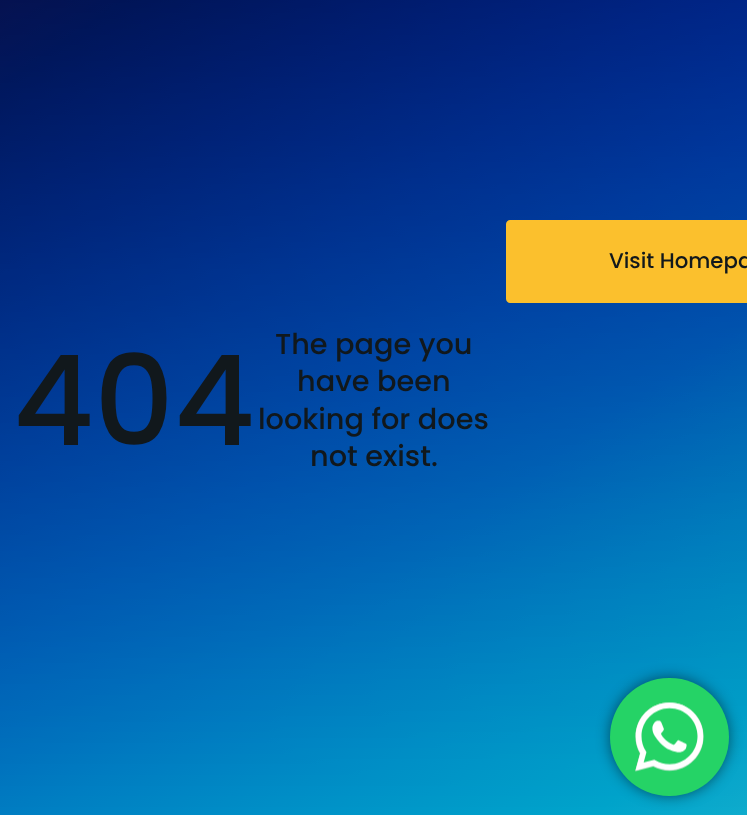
(async () => {
  const canvas = document.querySelector("canvas");
  canvas.width = 747;
  canvas.height = 815;
  const ctx = canvas.getContext("2d");
  ctx.miterLimit = 4;
  ctx.fontKerning = "normal";
  async function loadImage(src) {
    const img = new Image();
    img.src = src;
    await img.decode();
    return img;
  }
  let path;

  ctx.fillStyle = "#ffffff";
  ctx.fillRect(0, 0, 747, 815);
  ctx.drawImage(await loadImage("img/1.png"), 0, 0, 747, 815);
  ctx.fillStyle = "#fbc02d";
  path = new Path2D("M510 220H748V303H510C508 303 506 301 506 299V224C506 222 508 220 510 220Z");
  ctx.fill(path);
  ctx.fillStyle = "rgba(0, 0, 0, 0.5)";
  ctx.filter = "blur(7px)";
  ctx.beginPath();
  ctx.roundRect(610, 678, 119, 118, 59);
  ctx.fill();
  ctx.filter = "none";
  ctx.fillStyle = "#25d366";
  ctx.beginPath();
  ctx.roundRect(610, 678, 119, 118, 59);
  ctx.fill();
  ctx.drawImage(await loadImage("img/2.png"), 635, 702, 69, 70);
  ctx.font = "500 21.25px Poppins";
  ctx.fillStyle = "#11181c";
  ctx.fillText("Visit Homepa", 609, 268);
  ctx.font = "500 125px Poppins";
  ctx.fillText("404", 13, 445);
  ctx.font = "500 28.75px Poppins";
  for (const [text, x, y] of [
    ["The page you", 275, 354],
    ["have been", 297, 391],
    ["looking for does", 258, 429],
    ["not exist.", 310, 466],
  ]) {
    ctx.fillText(text, x, y);
  }
})();
